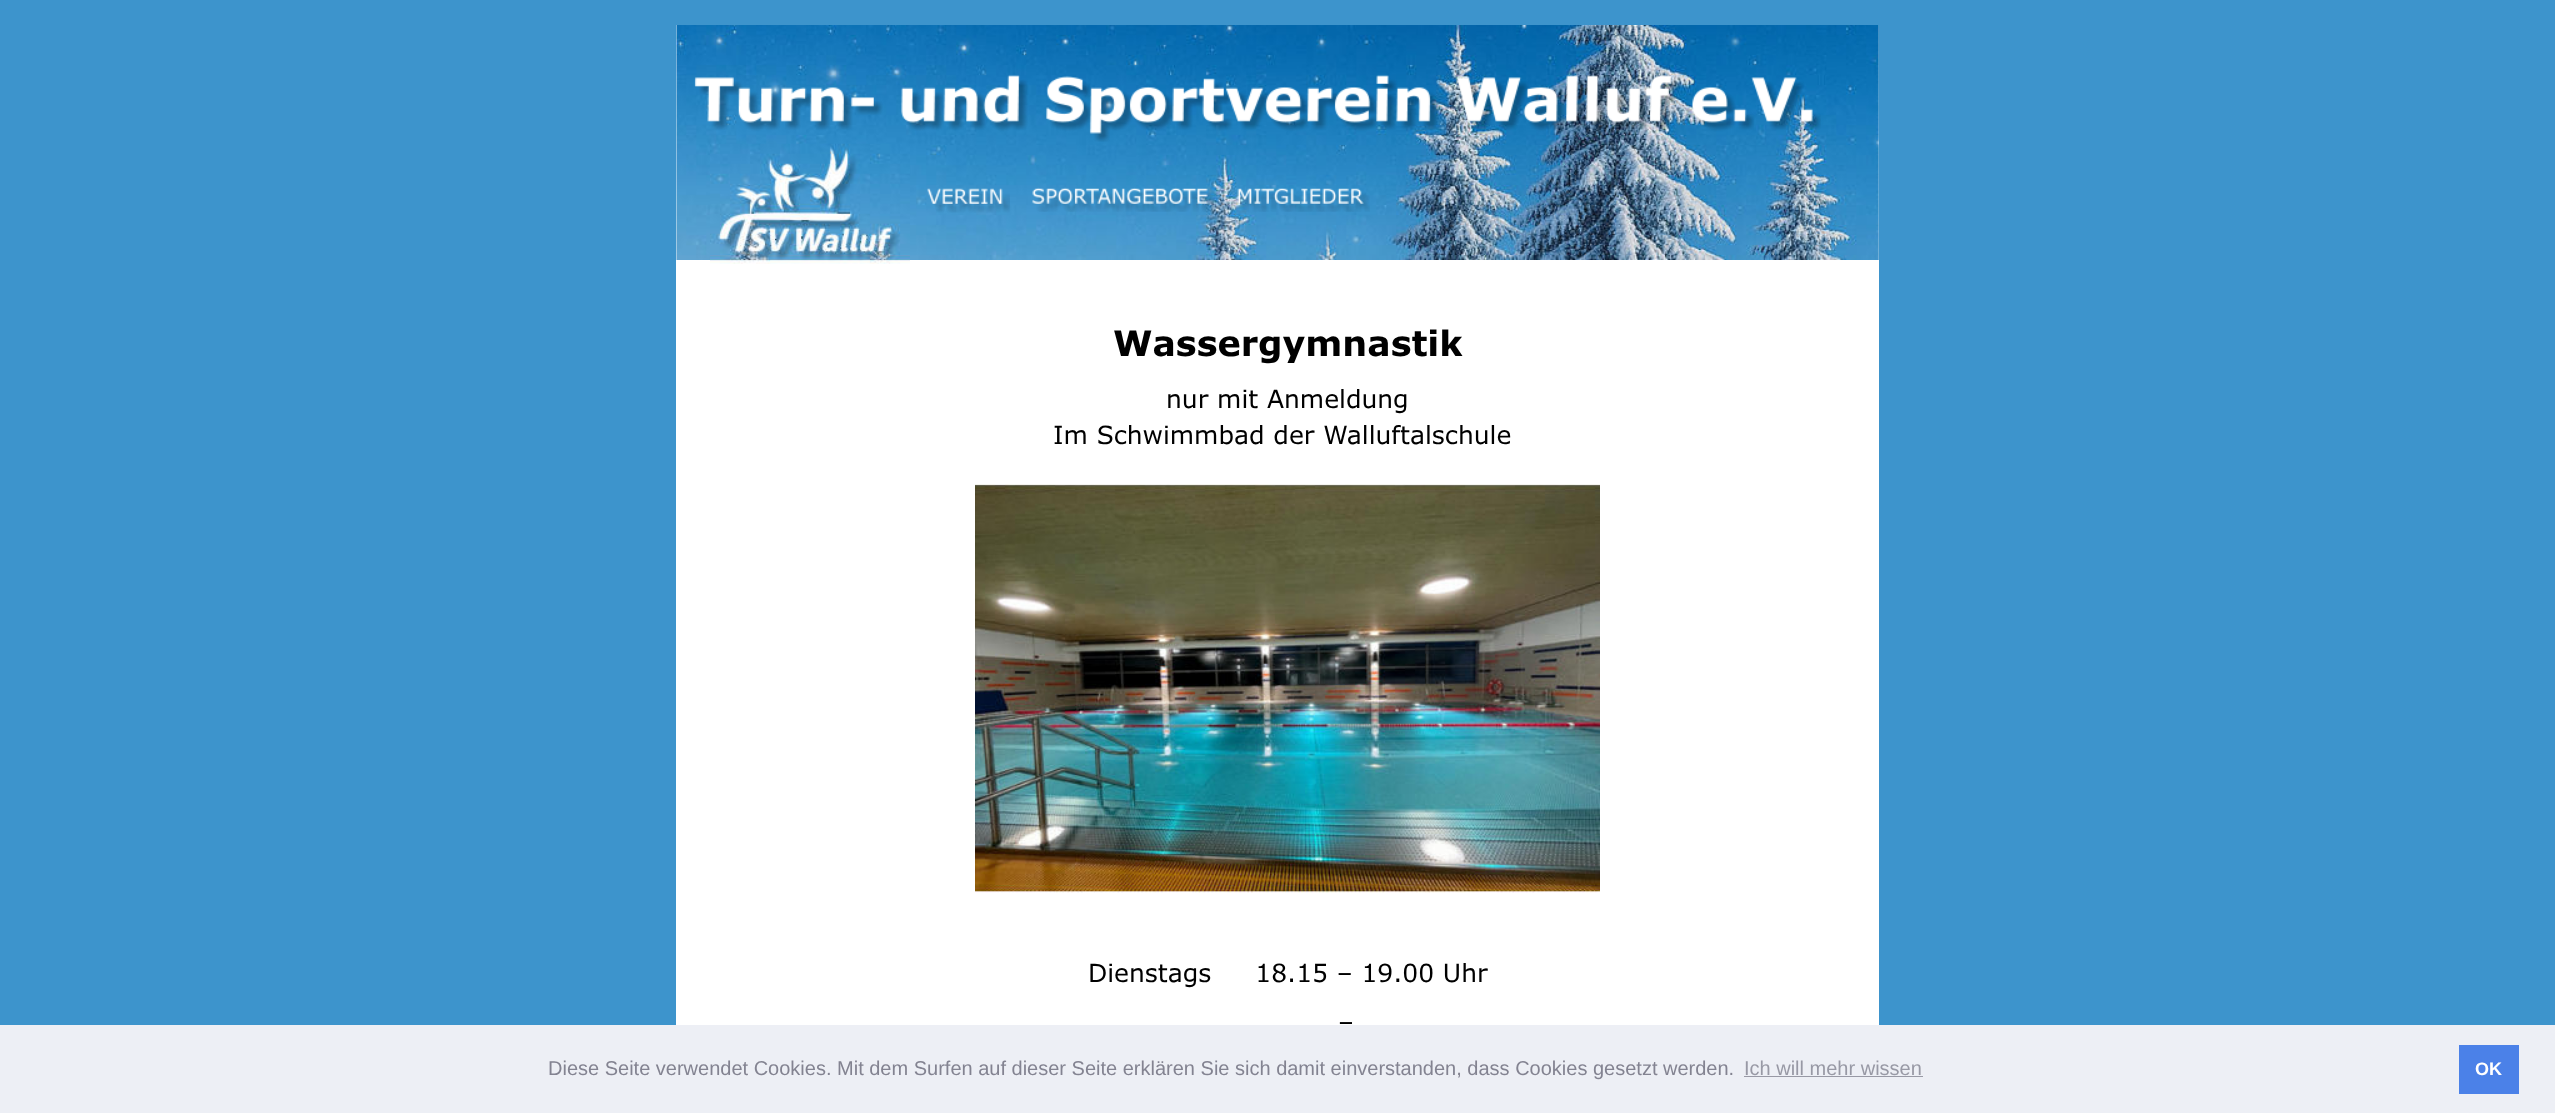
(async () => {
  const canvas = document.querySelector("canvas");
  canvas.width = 2555;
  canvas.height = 1113;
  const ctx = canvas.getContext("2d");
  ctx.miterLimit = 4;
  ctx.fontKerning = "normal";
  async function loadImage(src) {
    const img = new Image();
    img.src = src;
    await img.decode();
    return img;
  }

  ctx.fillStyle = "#3d94cc";
  ctx.fillRect(0, 0, 2555, 1113);
  ctx.fillStyle = "#ffffff";
  ctx.fillRect(676, 25, 1203, 1000);
  ctx.drawImage(await loadImage("img/4.png"), 676, 25, 1203, 235);
  ctx.drawImage(await loadImage("img/1.png"), 927, 188, 83, 25);
  ctx.drawImage(await loadImage("img/2.png"), 1032, 187, 183, 25);
  ctx.drawImage(await loadImage("img/3.png"), 1237, 188, 133, 24);
  ctx.drawImage(await loadImage("img/5.png"), 694, 74, 1127, 68);
  ctx.drawImage(await loadImage("img/6.png"), 710, 143, 200, 121);
  ctx.drawImage(await loadImage("img/7.png"), 975, 484, 625, 409);
  for (const [x, y, w, h, color] of [
    [0, 1025, 2555, 88, "#edeff5"],
    [1744, 1076, 179, 1, "#9899a5"],
    [2459, 1045, 60, 49, "#4b81e8"],
  ]) {
    ctx.fillStyle = color;
    ctx.fillRect(x, y, w, h);
  }
  ctx.font = "bold 35px Verdana";
  ctx.fillStyle = "#000000";
  ctx.fillText("Wassergymnastik", 1113, 356);
  ctx.font = "25px Verdana";
  for (const [text, x, y] of [
    ["nur mit Anmeldung", 1166, 408],
    ["Dienstags     18.15 – 19.00 Uhr", 1088, 982],
    ["–", 1338, 1031],
    ["Im Schwimmbad der Walluftalschule", 1053, 444],
  ]) {
    ctx.fillText(text, x, y);
  }
  ctx.font = "20px Liberation Sans";
  ctx.fillStyle = "#838391";
  ctx.fillText("Diese Seite verwendet Cookies. Mit dem Surfen auf dieser Seite erklären Sie sich damit einverstanden, dass Cookies gesetzt werden.", 548, 1075);
  ctx.fillStyle = "#9899a5";
  ctx.fillText("Ich will mehr wissen", 1744, 1075);
  ctx.font = "bold 18px Liberation Sans";
  ctx.fillStyle = "#ffffff";
  ctx.fillText("OK", 2475, 1075);
})();
